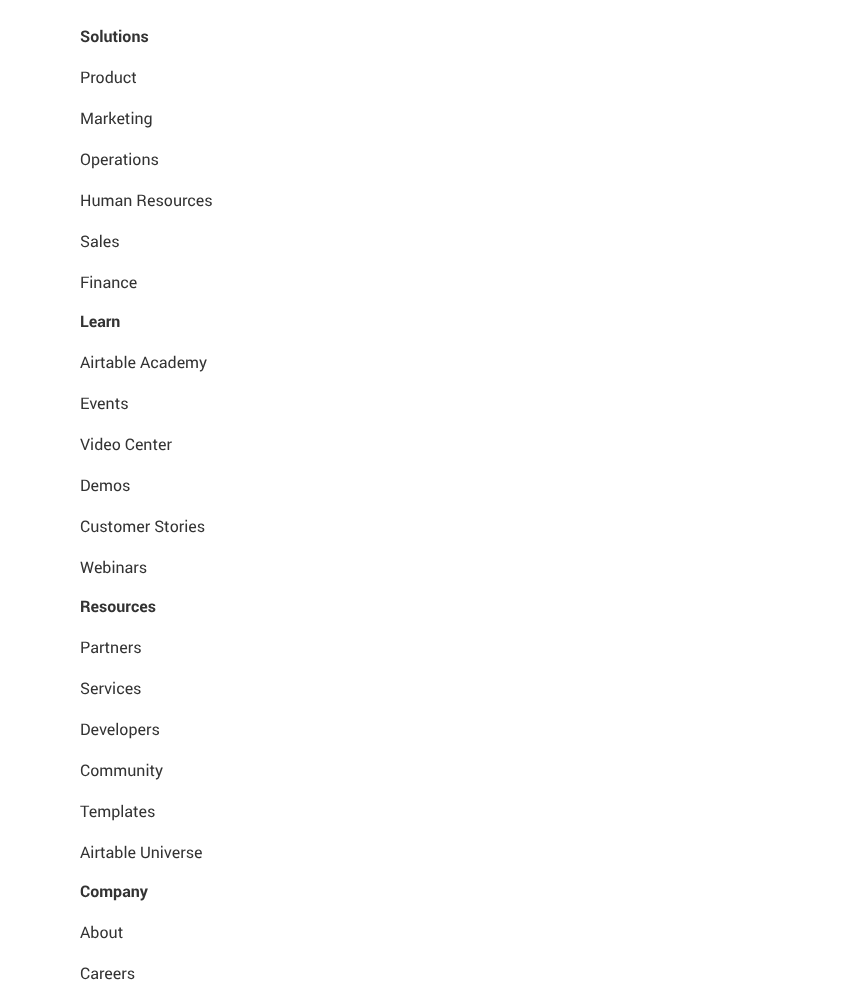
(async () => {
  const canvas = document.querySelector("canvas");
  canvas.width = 859;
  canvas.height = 989;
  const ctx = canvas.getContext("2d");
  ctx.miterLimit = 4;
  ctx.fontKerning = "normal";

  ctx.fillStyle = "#ffffff";
  ctx.fillRect(0, 0, 859, 989);
  ctx.font = "bold 16px Roboto";
  ctx.fillStyle = "#333333";
  ctx.fillText("Solutions", 80, 42);
  ctx.font = "16px Roboto";
  for (const [text, x, y] of [
    ["Product", 80, 83],
    ["Marketing", 80, 124],
    ["Operations", 80, 165],
    ["Human Resources", 80, 206],
    ["Sales", 80, 247],
    ["Finance", 80, 288],
  ]) {
    ctx.fillText(text, x, y);
  }
  ctx.font = "bold 16px Roboto";
  ctx.fillText("Learn", 80, 327);
  ctx.font = "16px Roboto";
  for (const [text, x, y] of [
    ["Airtable Academy", 80, 368],
    ["Events", 80, 409],
    ["Video Center", 80, 450],
    ["Demos", 80, 491],
    ["Customer Stories", 80, 532],
    ["Webinars", 80, 573],
  ]) {
    ctx.fillText(text, x, y);
  }
  ctx.font = "bold 16px Roboto";
  ctx.fillText("Resources", 80, 612);
  ctx.font = "16px Roboto";
  for (const [text, x, y] of [
    ["Partners", 80, 653],
    ["Services", 80, 694],
    ["Developers", 80, 735],
    ["Community", 80, 776],
    ["Templates", 80, 817],
    ["Airtable Universe", 80, 858],
  ]) {
    ctx.fillText(text, x, y);
  }
  ctx.font = "bold 16px Roboto";
  ctx.fillText("Company", 80, 897);
  ctx.font = "16px Roboto";
  ctx.fillText("About", 80, 938);
  ctx.fillText("Careers", 80, 979);
})();
